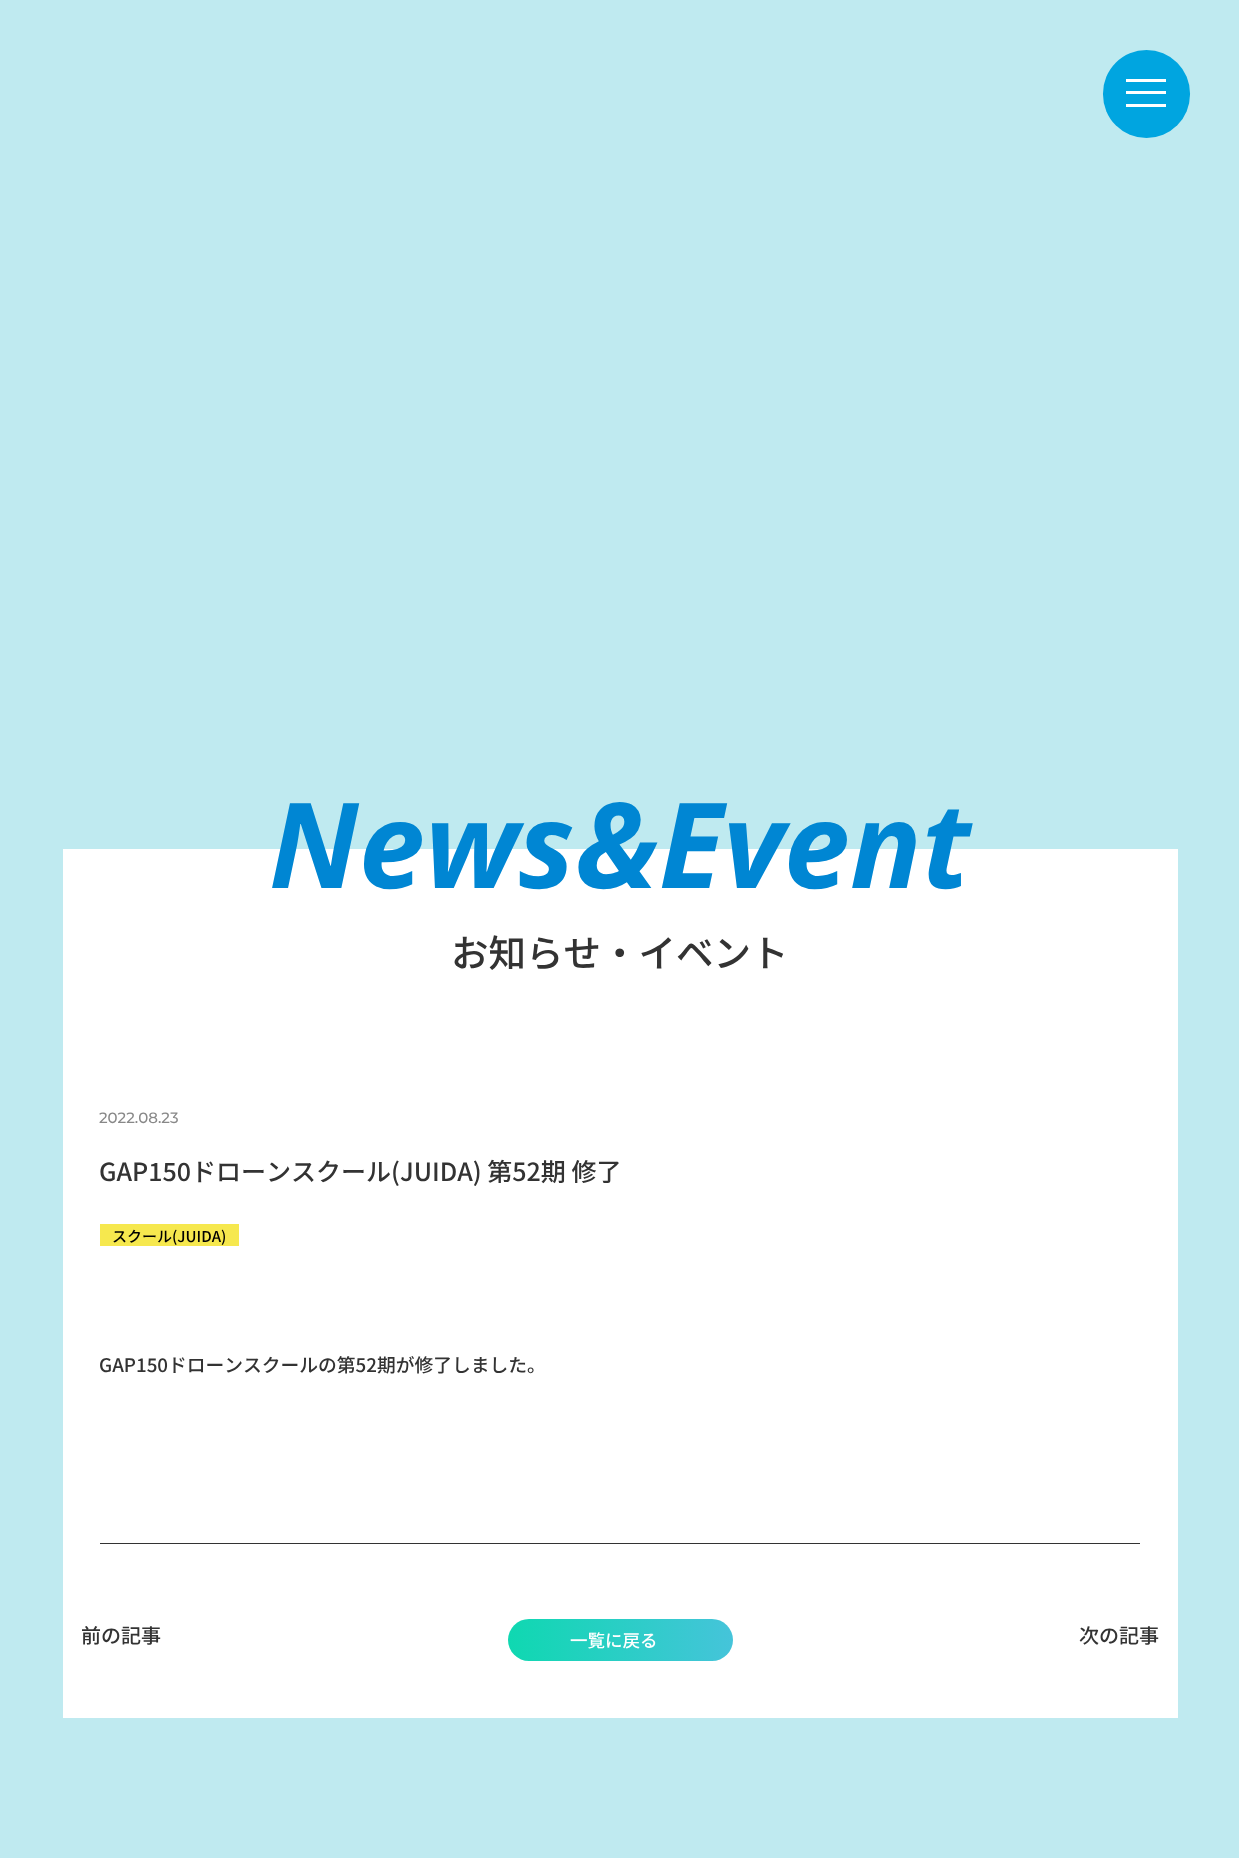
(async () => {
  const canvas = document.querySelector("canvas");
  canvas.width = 1239;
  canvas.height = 1858;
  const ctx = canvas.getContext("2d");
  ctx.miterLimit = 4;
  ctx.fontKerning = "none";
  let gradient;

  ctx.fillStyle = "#bfeaf0";
  ctx.fillRect(0, 0, 1239, 1858);
  ctx.fillStyle = "#00a5e0";
  ctx.beginPath();
  ctx.roundRect(1103, 50, 87, 88, 43.5);
  ctx.fill();
  for (const [x, y, w, h, color] of [
    [1126, 91, 40, 3, "#ffffff"],
    [1126, 79, 40, 3, "#ffffff"],
    [1126, 104, 40, 3, "#ffffff"],
    [63, 849, 1115, 869, "#ffffff"],
    [100, 1224, 139, 22, "#f6e84e"],
    [100, 1543, 1040, 1, "#333333"],
  ]) {
    ctx.fillStyle = color;
    ctx.fillRect(x, y, w, h);
  }
  gradient = ctx.createLinearGradient(508, 1640, 733, 1640);
  gradient.addColorStop(0, "#0fd8b1");
  gradient.addColorStop(1, "#45c4da");
  ctx.fillStyle = gradient;
  ctx.beginPath();
  ctx.roundRect(508, 1619, 225, 42, 21);
  ctx.fill();
  ctx.font = "italic bold 118.75px Open Sans";
  ctx.fillStyle = "#0086d3";
  ctx.fillText("News&Event", 269, 888);
  ctx.font = "500 37.5px Noto Sans JP";
  ctx.fillStyle = "#333333";
  ctx.fillText("お知らせ・イベント", 451, 967);
  ctx.font = "500 15px Montserrat";
  ctx.fillStyle = "#888888";
  ctx.fillText("2022.08.23", 99, 1123);
  ctx.font = "500 25px Noto Sans JP";
  ctx.fillStyle = "#333333";
  ctx.fillText("GAP150ドローンスクール(JUIDA) 第52期 修了", 99, 1181);
  ctx.font = "500 15px Noto Sans JP";
  ctx.fillStyle = "#000000";
  ctx.fillText("スクール(JUIDA)", 112, 1242);
  ctx.font = "500 18.75px Noto Sans JP";
  ctx.fillStyle = "#333333";
  ctx.fillText("GAP150ドローンスクールの第52期が修了しました。", 99, 1372);
  ctx.font = "500 20px Noto Sans JP";
  ctx.fillText("前の記事", 81, 1643);
  ctx.font = "500 17.5px Noto Sans JP";
  ctx.fillStyle = "#ffffff";
  ctx.fillText("一覧に戻る", 570, 1647);
  ctx.font = "500 20px Noto Sans JP";
  ctx.fillStyle = "#333333";
  ctx.fillText("次の記事", 1079, 1643);
})();
